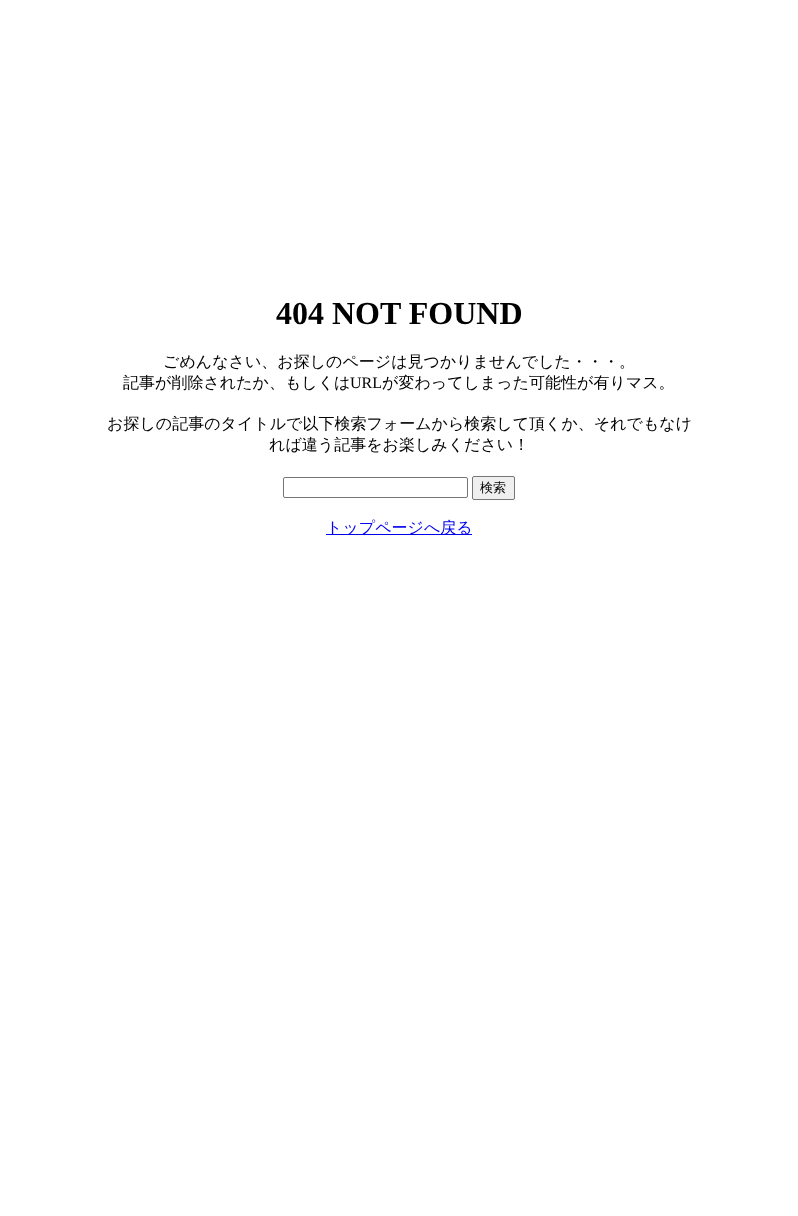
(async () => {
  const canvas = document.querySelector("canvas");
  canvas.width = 798;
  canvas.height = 1216;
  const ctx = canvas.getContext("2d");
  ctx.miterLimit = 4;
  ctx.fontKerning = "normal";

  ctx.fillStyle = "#ffffff";
  ctx.fillRect(0, 0, 798, 1216);
  ctx.beginPath();
  ctx.roundRect(283.5, 477.5, 184, 20, 1.5);
  ctx.strokeStyle = "#767676";
  ctx.stroke();
  ctx.fillStyle = "#efefef";
  ctx.beginPath();
  ctx.roundRect(472.5, 476.5, 42, 23, 1.5);
  ctx.fill();
  ctx.stroke();
  ctx.fillStyle = "#0000ee";
  ctx.fillRect(326, 534, 146, 1);
  ctx.font = "bold 32px Liberation Serif";
  ctx.fillStyle = "#000000";
  ctx.fillText("404 NOT FOUND", 276, 324);
  ctx.font = "500 16px WenQuanYi Zen Hei";
  ctx.fillText("ごめんなさい、お探しのページは見つかりませんでした・・・。", 163, 367);
  ctx.fillText("記事が削除されたか、もしくは", 123, 388);
  ctx.font = "16px Liberation Serif";
  ctx.fillText("URL", 350, 388);
  ctx.font = "500 16px WenQuanYi Zen Hei";
  for (const [text, x, y] of [
    ["が変わってしまった可能性が有りマス。", 382, 388],
    ["お探しの記事のタイトルで以下検索フォームから検索して頂くか、それでもなけ", 107, 429],
    ["れば違う記事をお楽しみください！", 269, 450],
  ]) {
    ctx.fillText(text, x, y);
  }
  ctx.font = "500 13px WenQuanYi Zen Hei";
  ctx.fillText("検索", 480, 492);
  ctx.font = "500 16px WenQuanYi Zen Hei";
  ctx.fillStyle = "#0000ee";
  ctx.fillText("トップページへ戻る", 326, 533);
})();
